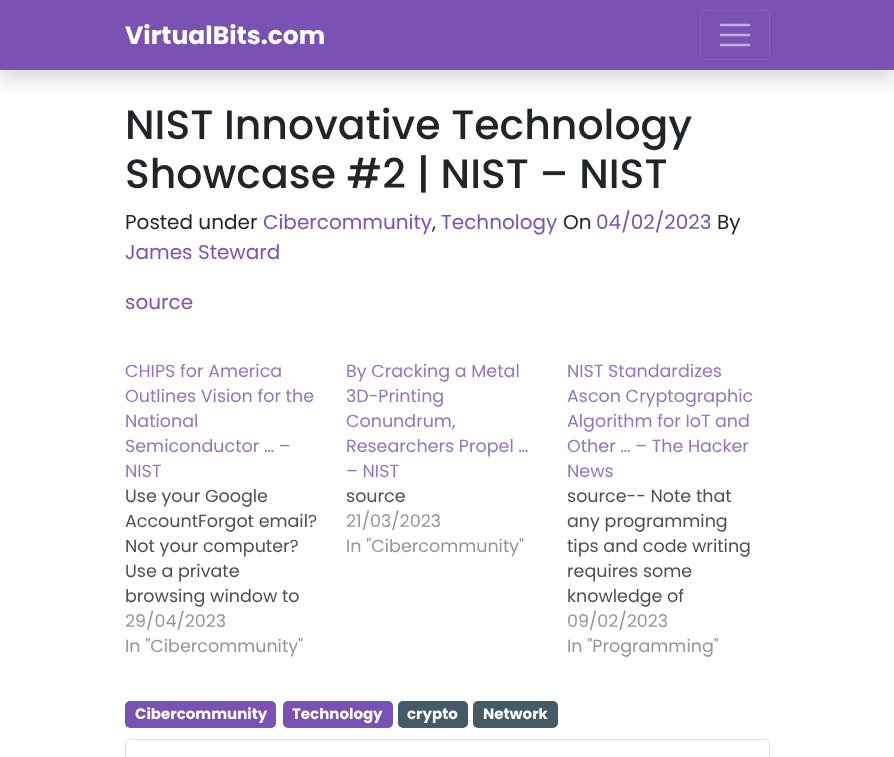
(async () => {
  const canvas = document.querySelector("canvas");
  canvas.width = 894;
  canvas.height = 757;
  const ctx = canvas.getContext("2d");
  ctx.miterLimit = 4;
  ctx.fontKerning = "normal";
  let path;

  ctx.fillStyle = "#ffffff";
  ctx.fillRect(0, 0, 894, 757);
  ctx.fillStyle = "rgba(0, 0, 0, 0.15)";
  ctx.filter = "blur(10px)";
  ctx.beginPath();
  ctx.rect(0, 10, 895, 70);
  ctx.fill();
  ctx.filter = "none";
  ctx.fillStyle = "#7952b3";
  ctx.fillRect(0, 0, 894, 70);
  ctx.beginPath();
  ctx.roundRect(700.5, 10.5, 69, 49, 4.5);
  ctx.strokeStyle = "#8663bb";
  ctx.stroke();
  path = new Path2D("M721 25H749M721 35H749M721 45H749");
  ctx.strokeStyle = "#c3b1dd";
  ctx.lineWidth = 2.5;
  ctx.lineCap = "round";
  ctx.stroke(path);
  ctx.beginPath();
  ctx.roundRect(125, 701, 151, 27, 5);
  ctx.fill();
  ctx.beginPath();
  ctx.roundRect(283, 701, 110, 27, 5);
  ctx.fill();
  ctx.fillStyle = "#455a64";
  ctx.beginPath();
  ctx.roundRect(398, 701, 70, 27, 5);
  ctx.fill();
  ctx.beginPath();
  ctx.roundRect(473, 701, 85, 27, 5);
  ctx.fill();
  ctx.beginPath();
  ctx.roundRect(125.5, 739.5, 644, 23, 4.5);
  ctx.strokeStyle = "#dfdfdf";
  ctx.lineWidth = 1;
  ctx.stroke();
  ctx.font = "bold 25px Poppins";
  ctx.fillStyle = "#ffffff";
  ctx.fillText("VirtualBits.com", 125, 44);
  ctx.font = "500 41px Poppins";
  ctx.fillStyle = "#212529";
  ctx.fillText("NIST Innovative Technology", 125, 139);
  ctx.fillText("Showcase #2 | NIST – NIST", 125, 188);
  ctx.font = "20px Poppins";
  ctx.fillText("Posted under", 125, 229);
  ctx.fillStyle = "#7952b3";
  ctx.fillText("Cibercommunity", 263, 229);
  ctx.fillStyle = "#212529";
  ctx.fillText(",", 432, 229);
  ctx.fillStyle = "#7952b3";
  ctx.fillText("Technology", 441, 229);
  ctx.fillStyle = "#212529";
  ctx.fillText("On", 563, 229);
  ctx.fillStyle = "#7952b3";
  ctx.fillText("04/02/2023", 596, 229);
  ctx.fillStyle = "#212529";
  ctx.fillText("By", 717, 229);
  ctx.fillStyle = "#7952b3";
  ctx.fillText("James Steward", 125, 259);
  ctx.fillText("source", 125, 309);
  ctx.font = "17.5px Poppins";
  ctx.fillStyle = "#9475c2";
  for (const [text, x, y] of [
    ["CHIPS for America", 125, 377],
    ["Outlines Vision for the", 125, 402],
    ["National", 125, 427],
    ["Semiconductor … –", 125, 452],
    ["NIST", 125, 477],
  ]) {
    ctx.fillText(text, x, y);
  }
  ctx.fillStyle = "#4d5154";
  for (const [text, x, y] of [
    ["Use your Google", 125, 502],
    ["AccountForgot email?", 125, 527],
    ["Not your computer?", 125, 552],
    ["Use a private", 125, 577],
    ["browsing window to", 125, 602],
  ]) {
    ctx.fillText(text, x, y);
  }
  ctx.fillStyle = "#949698";
  ctx.fillText("29/04/2023", 125, 627);
  ctx.fillText("In \"Cibercommunity\"", 125, 652);
  ctx.fillStyle = "#9475c2";
  for (const [text, x, y] of [
    ["By Cracking a Metal", 346, 377],
    ["3D-Printing", 346, 402],
    ["Conundrum,", 346, 427],
    ["Researchers Propel …", 346, 452],
    ["– NIST", 346, 477],
  ]) {
    ctx.fillText(text, x, y);
  }
  ctx.fillStyle = "#4d5154";
  ctx.fillText("source", 346, 502);
  ctx.fillStyle = "#949698";
  ctx.fillText("21/03/2023", 346, 527);
  ctx.fillText("In \"Cibercommunity\"", 346, 552);
  ctx.fillStyle = "#9475c2";
  for (const [text, x, y] of [
    ["NIST Standardizes", 567, 377],
    ["Ascon Cryptographic", 567, 402],
    ["Algorithm for IoT and", 567, 427],
    ["Other … – The Hacker", 567, 452],
    ["News", 567, 477],
  ]) {
    ctx.fillText(text, x, y);
  }
  ctx.fillStyle = "#4d5154";
  for (const [text, x, y] of [
    ["source-- Note that", 567, 502],
    ["any programming", 567, 527],
    ["tips and code writing", 567, 552],
    ["requires some", 567, 577],
    ["knowledge of", 567, 602],
  ]) {
    ctx.fillText(text, x, y);
  }
  ctx.fillStyle = "#949698";
  ctx.fillText("09/02/2023", 567, 627);
  ctx.fillText("In \"Programming\"", 567, 652);
  ctx.font = "bold 15px Poppins";
  ctx.fillStyle = "#ffffff";
  for (const [text, x, y] of [
    ["Cibercommunity", 135, 719],
    ["Technology", 292, 719],
    ["crypto", 407, 719],
    ["Network", 483, 719],
  ]) {
    ctx.fillText(text, x, y);
  }
})();
